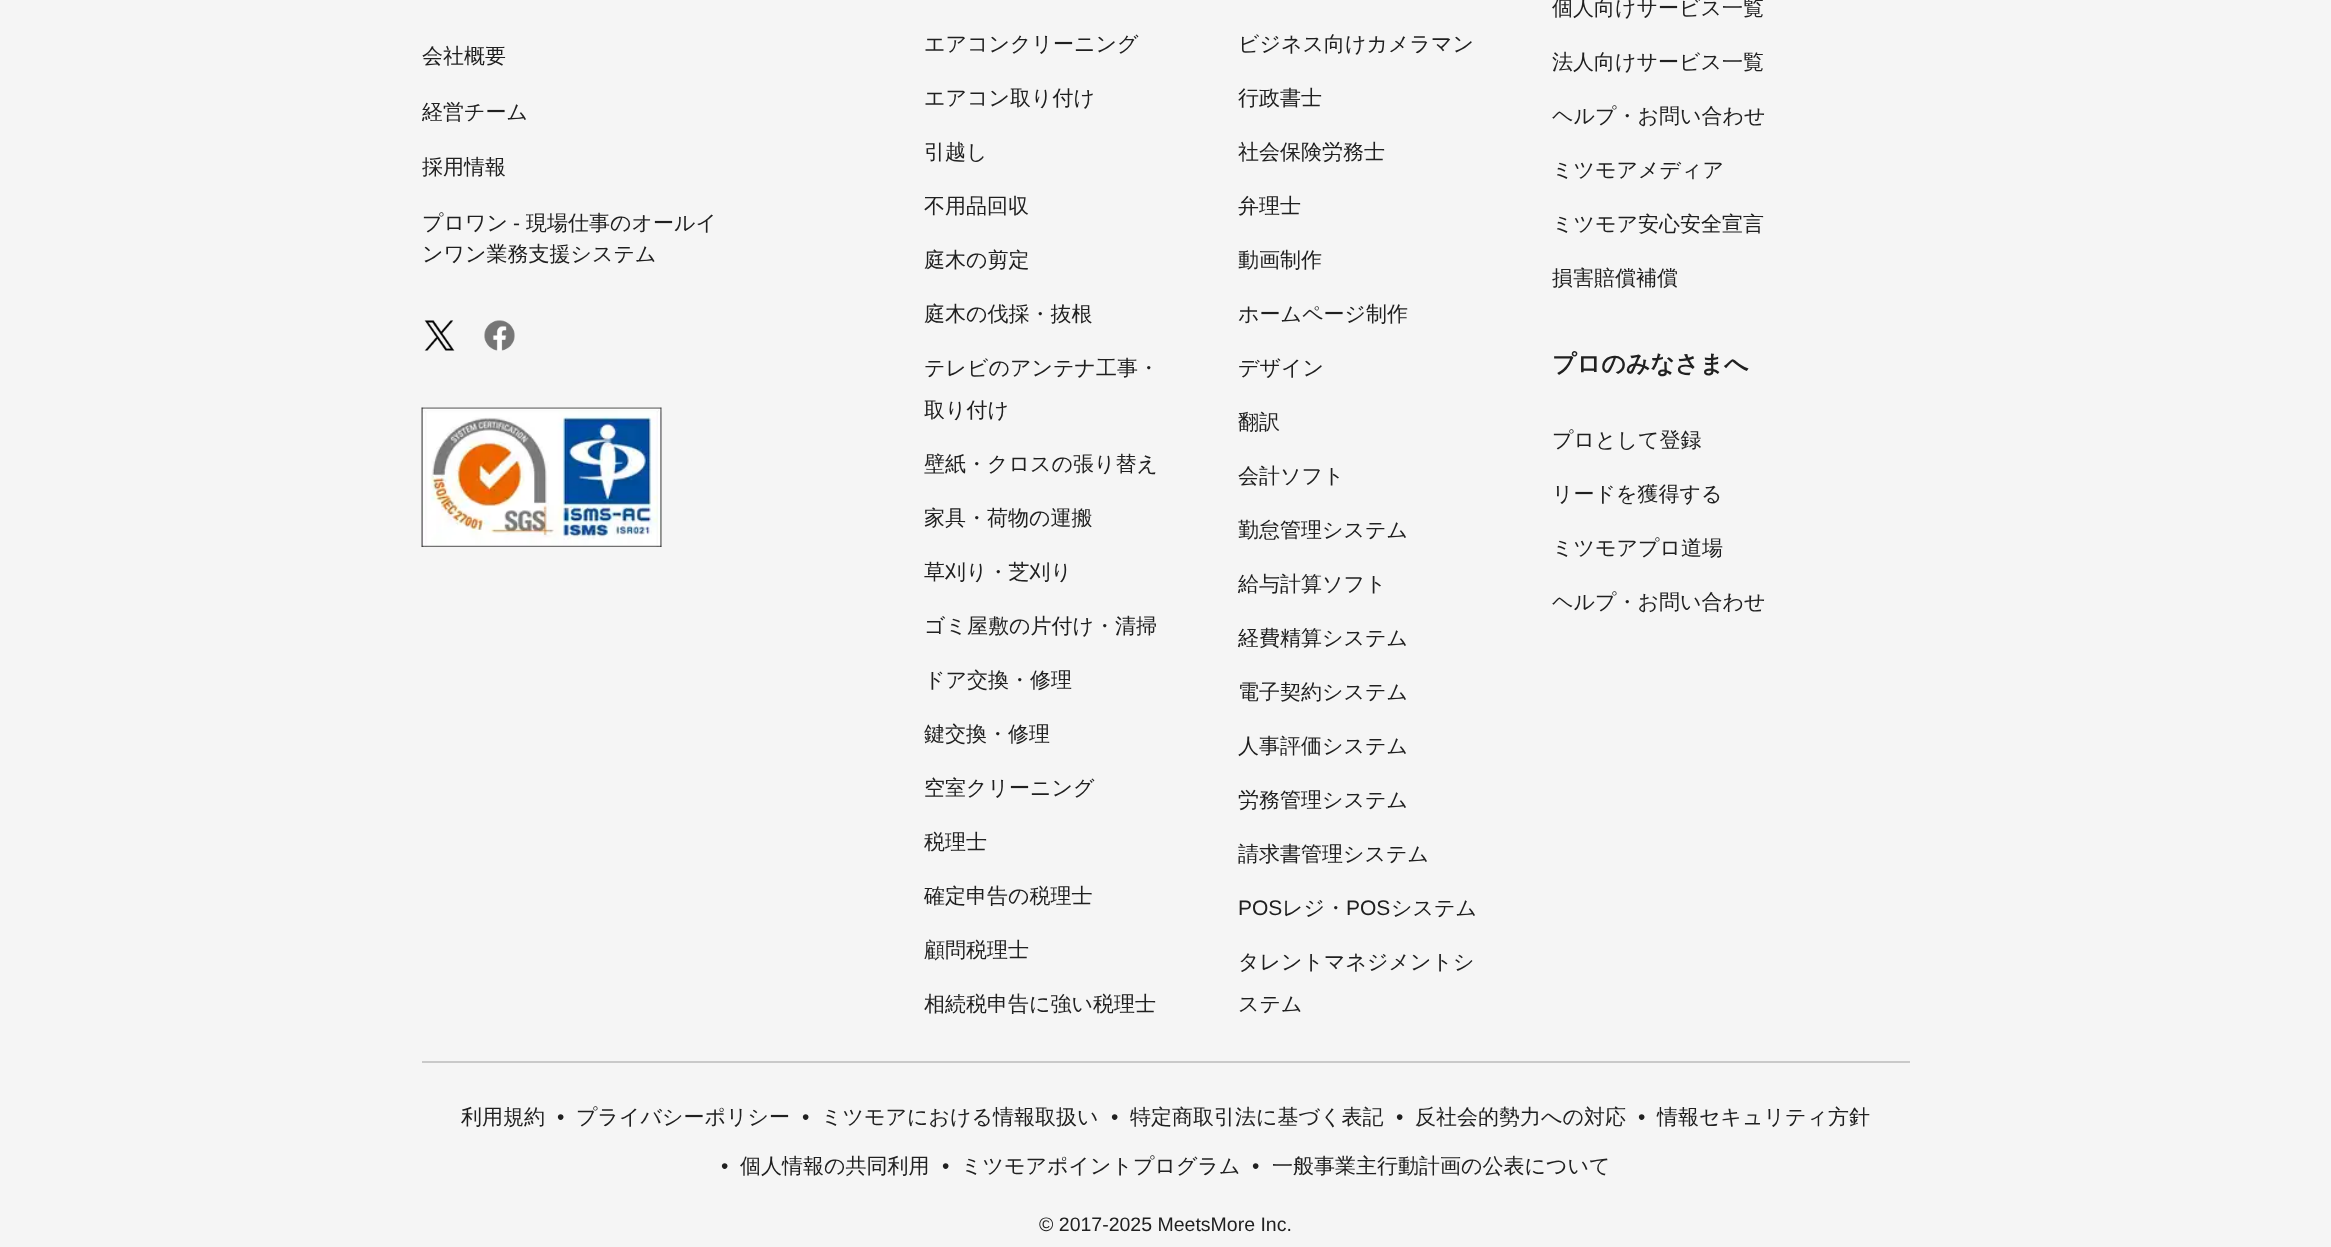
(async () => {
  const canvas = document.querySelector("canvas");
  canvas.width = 2331;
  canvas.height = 1247;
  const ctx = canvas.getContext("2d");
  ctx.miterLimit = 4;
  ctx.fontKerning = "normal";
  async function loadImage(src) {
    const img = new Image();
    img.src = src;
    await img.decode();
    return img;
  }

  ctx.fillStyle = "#f5f5f5";
  ctx.fillRect(0, 0, 2331, 1247);
  ctx.fillStyle = "#c9c9c9";
  ctx.fillRect(422, 1061, 1488, 2);
  ctx.drawImage(await loadImage("img/1.png"), 424, 320, 31, 31);
  ctx.drawImage(await loadImage("img/2.png"), 484, 320, 31, 31);
  ctx.drawImage(await loadImage("img/3.png"), 421, 407, 241, 140);
  ctx.font = "500 21px WenQuanYi Zen Hei";
  ctx.fillStyle = "#202020";
  for (const [text, x, y] of [
    ["会社概要", 422, 63],
    ["経営チーム", 422, 119],
    ["採用情報", 422, 174],
    ["プロワン", 422, 230],
  ]) {
    ctx.fillText(text, x, y);
  }
  ctx.font = "21px Liberation Sans";
  ctx.fillText("-", 513, 230);
  ctx.font = "500 21px WenQuanYi Zen Hei";
  for (const [text, x, y] of [
    ["現場仕事のオールイ", 526, 230],
    ["ンワン業務支援システム", 422, 261],
    ["エアコンクリーニング", 924, 51],
    ["エアコン取り付け", 924, 105],
    ["引越し", 924, 159],
    ["不用品回収", 924, 213],
    ["庭木の剪定", 924, 267],
    ["庭木の伐採・抜根", 924, 321],
    ["テレビのアンテナ工事・", 924, 375],
    ["取り付け", 924, 417],
    ["壁紙・クロスの張り替え", 924, 471],
    ["家具・荷物の運搬", 924, 525],
    ["草刈り・芝刈り", 924, 579],
    ["ゴミ屋敷の片付け・清掃", 924, 633],
    ["ドア交換・修理", 924, 687],
    ["鍵交換・修理", 924, 741],
    ["空室クリーニング", 924, 795],
    ["税理士", 924, 849],
    ["確定申告の税理士", 924, 903],
    ["顧問税理士", 924, 957],
    ["相続税申告に強い税理士", 924, 1011],
    ["ビジネス向けカメラマン", 1238, 51],
    ["行政書士", 1238, 105],
    ["社会保険労務士", 1238, 159],
    ["弁理士", 1238, 213],
    ["動画制作", 1238, 267],
    ["ホームページ制作", 1238, 321],
    ["デザイン", 1238, 375],
    ["翻訳", 1238, 429],
    ["会計ソフト", 1238, 483],
    ["勤怠管理システム", 1238, 537],
    ["給与計算ソフト", 1238, 591],
    ["経費精算システム", 1238, 645],
    ["電子契約システム", 1238, 699],
    ["人事評価システム", 1238, 753],
    ["労務管理システム", 1238, 807],
    ["請求書管理システム", 1238, 861],
  ]) {
    ctx.fillText(text, x, y);
  }
  ctx.font = "21px Liberation Sans";
  ctx.fillText("POS", 1238, 915);
  ctx.font = "500 21px WenQuanYi Zen Hei";
  ctx.fillText("レジ・", 1282, 915);
  ctx.font = "21px Liberation Sans";
  ctx.fillText("POS", 1346, 915);
  ctx.font = "500 21px WenQuanYi Zen Hei";
  for (const [text, x, y] of [
    ["システム", 1391, 915],
    ["タレントマネジメントシ", 1238, 969],
    ["ステム", 1238, 1011],
    ["個人向けサービス一覧", 1552, 15],
    ["法人向けサービス一覧", 1552, 69],
    ["ヘルプ・お問い合わせ", 1552, 123],
    ["ミツモアメディア", 1552, 177],
    ["ミツモア安心安全宣言", 1552, 231],
    ["損害賠償補償", 1552, 285],
  ]) {
    ctx.fillText(text, x, y);
  }
  ctx.font = "bold 24px WenQuanYi Zen Hei";
  ctx.fillText("プロのみなさまへ", 1552, 372);
  ctx.font = "500 21px WenQuanYi Zen Hei";
  for (const [text, x, y] of [
    ["プロとして登録", 1552, 447],
    ["リードを獲得する", 1552, 501],
    ["ミツモアプロ道場", 1552, 555],
    ["ヘルプ・お問い合わせ", 1552, 609],
    ["利用規約", 461, 1124],
  ]) {
    ctx.fillText(text, x, y);
  }
  ctx.font = "21px Liberation Sans";
  ctx.fillText("•", 557, 1124);
  ctx.font = "500 21px WenQuanYi Zen Hei";
  ctx.fillText("プライバシーポリシー", 576, 1124);
  ctx.font = "21px Liberation Sans";
  ctx.fillText("•", 802, 1124);
  ctx.font = "500 21px WenQuanYi Zen Hei";
  ctx.fillText("ミツモアにおける情報取扱い", 821, 1124);
  ctx.font = "21px Liberation Sans";
  ctx.fillText("•", 1111, 1124);
  ctx.font = "500 21px WenQuanYi Zen Hei";
  ctx.fillText("特定商取引法に基づく表記", 1130, 1124);
  ctx.font = "21px Liberation Sans";
  ctx.fillText("•", 1396, 1124);
  ctx.font = "500 21px WenQuanYi Zen Hei";
  ctx.fillText("反社会的勢力への対応", 1415, 1124);
  ctx.font = "21px Liberation Sans";
  ctx.fillText("•", 1638, 1124);
  ctx.font = "500 21px WenQuanYi Zen Hei";
  ctx.fillText("情報セキュリティ方針", 1657, 1124);
  ctx.font = "21px Liberation Sans";
  ctx.fillText("•", 721, 1173);
  ctx.font = "500 21px WenQuanYi Zen Hei";
  ctx.fillText("個人情報の共同利用", 740, 1173);
  ctx.font = "21px Liberation Sans";
  ctx.fillText("•", 942, 1173);
  ctx.font = "500 21px WenQuanYi Zen Hei";
  ctx.fillText("ミツモアポイントプログラム", 961, 1173);
  ctx.font = "21px Liberation Sans";
  ctx.fillText("•", 1252, 1173);
  ctx.font = "500 21px WenQuanYi Zen Hei";
  ctx.fillText("一般事業主行動計画の公表について", 1272, 1173);
  ctx.font = "19.5px Liberation Sans";
  ctx.fillText("© 2017-2025 MeetsMore Inc.", 1039, 1231);
})();
